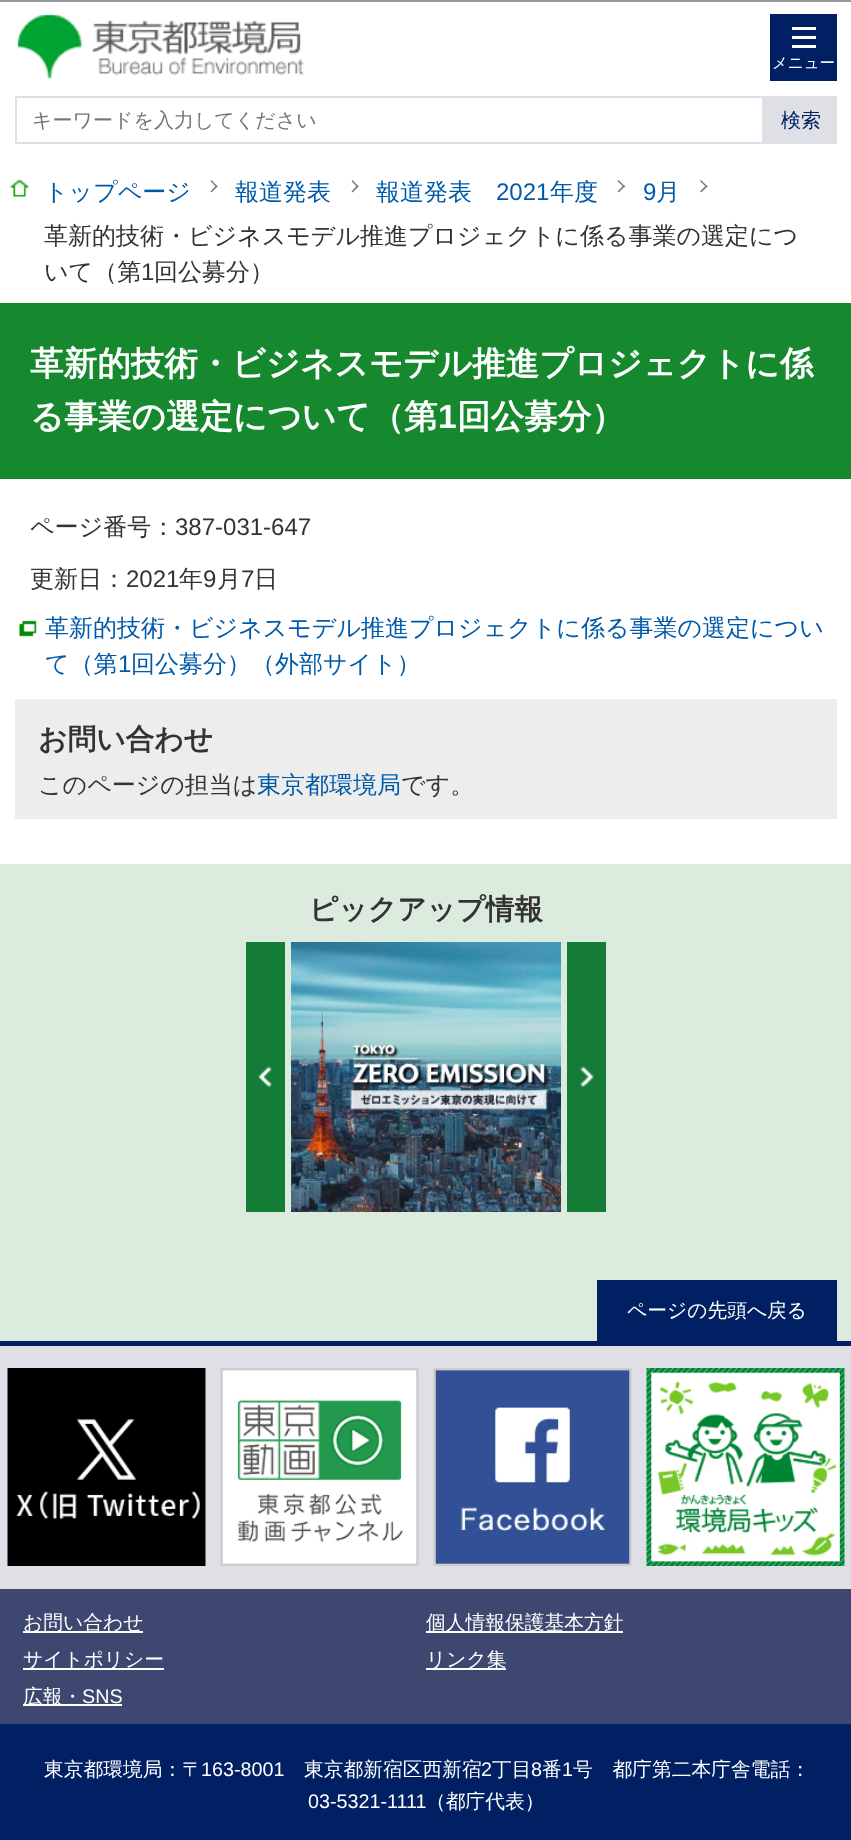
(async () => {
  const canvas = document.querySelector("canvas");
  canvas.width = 851;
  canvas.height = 1840;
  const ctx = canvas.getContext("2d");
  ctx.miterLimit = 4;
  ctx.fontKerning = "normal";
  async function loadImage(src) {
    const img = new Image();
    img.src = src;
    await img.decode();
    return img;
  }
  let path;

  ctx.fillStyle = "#ffffff";
  ctx.fillRect(0, 0, 851, 1840);
  ctx.fillStyle = "#999999";
  ctx.fillRect(0, 0, 851, 2);
  ctx.drawImage(await loadImage("img/1.png"), 17, 14, 287, 65);
  ctx.fillStyle = "#002063";
  ctx.fillRect(770, 14, 67, 67);
  ctx.drawImage(await loadImage("img/2.png"), 792, 27, 24, 21);
  ctx.strokeStyle = "#dfe0e6";
  ctx.lineWidth = 2;
  ctx.strokeRect(16, 97, 747, 46);
  ctx.fillStyle = "#dfe0e6";
  ctx.fillRect(764, 96, 73, 48);
  ctx.drawImage(await loadImage("img/3.png"), 10, 179, 19, 18);
  ctx.fillStyle = "#777777";
  path = new Path2D("M211.5 180L217.5 186.5L216.5 187.5L210.5 181Z");
  ctx.fill(path);
  path = new Path2D("M216.5 185L217.5 186.5L211.5 192.5L210.5 191.5Z");
  ctx.fill(path);
  path = new Path2D("M352.5 180L358.5 186.5L357.5 187.5L351.5 181Z");
  ctx.fill(path);
  path = new Path2D("M357.5 185L358.5 186.5L352.5 192.5L351.5 191.5Z");
  ctx.fill(path);
  path = new Path2D("M618.5 180L625 186.5L624 187.5L617.5 181Z");
  ctx.fill(path);
  path = new Path2D("M624 185L625 186.5L618.5 192.5L617.5 191.5Z");
  ctx.fill(path);
  path = new Path2D("M701 180L707.5 186.5L706.5 187.5L700 181Z");
  ctx.fill(path);
  path = new Path2D("M706.5 185L707.5 186.5L701 192.5L700 191.5Z");
  ctx.fill(path);
  ctx.fillStyle = "#16892e";
  ctx.fillRect(0, 303, 851, 176);
  ctx.drawImage(await loadImage("img/4.png"), 19, 620, 18, 17);
  ctx.fillStyle = "#edeeec";
  ctx.fillRect(15, 699, 822, 120);
  ctx.fillStyle = "#dbebde";
  ctx.fillRect(0, 864, 851, 477);
  ctx.drawImage(await loadImage("img/5.png"), 246, 942, 39, 270);
  ctx.drawImage(await loadImage("img/6.png"), 291, 942, 270, 270);
  ctx.drawImage(await loadImage("img/7.png"), 567, 942, 39, 270);
  for (const [x, y, w, h, color] of [
    [597, 1280, 240, 61, "#002063"],
    [0, 1346, 851, 243, "#dfe0e6"],
    [0, 1341, 851, 5, "#002063"],
  ]) {
    ctx.fillStyle = color;
    ctx.fillRect(x, y, w, h);
  }
  ctx.drawImage(await loadImage("img/8.png"), 7, 1368, 199, 198);
  ctx.drawImage(await loadImage("img/9.png"), 220, 1368, 199, 198);
  ctx.drawImage(await loadImage("img/10.png"), 433, 1368, 199, 198);
  ctx.drawImage(await loadImage("img/11.png"), 646, 1368, 199, 198);
  for (const [x, y, w, h, color] of [
    [0, 1589, 851, 135, "#3e4770"],
    [23, 1631, 120, 2, "#ffffff"],
    [426, 1631, 197, 2, "#ffffff"],
    [23, 1668, 141, 2, "#ffffff"],
    [426, 1668, 80, 2, "#ffffff"],
    [23, 1704, 99, 2, "#ffffff"],
    [0, 1724, 851, 116, "#002063"],
  ]) {
    ctx.fillStyle = color;
    ctx.fillRect(x, y, w, h);
  }
  ctx.font = "500 15.5px WenQuanYi Zen Hei";
  ctx.fillStyle = "#ffffff";
  ctx.fillText("メニュー", 772, 68);
  ctx.font = "500 20px WenQuanYi Zen Hei";
  ctx.fillStyle = "#757575";
  ctx.fillText("キーワードを入力してください", 32, 127);
  ctx.fillStyle = "#002063";
  ctx.fillText("検索", 781, 127);
  ctx.font = "500 24px WenQuanYi Zen Hei";
  ctx.fillStyle = "#005aaa";
  for (const [text, x, y] of [
    ["トップページ", 44, 200],
    ["報道発表", 235, 200],
    ["報道発表", 376, 200],
  ]) {
    ctx.fillText(text, x, y);
  }
  ctx.font = "24px Liberation Sans";
  ctx.fillText("2021", 496, 200);
  ctx.font = "500 24px WenQuanYi Zen Hei";
  ctx.fillText("年度", 550, 200);
  ctx.font = "24px Liberation Sans";
  ctx.fillText("9", 643, 200);
  ctx.font = "500 24px WenQuanYi Zen Hei";
  ctx.fillText("月", 656, 200);
  ctx.fillStyle = "#333333";
  ctx.fillText("革新的技術・ビジネスモデル推進プロジェクトに係る事業の選定につ", 44, 244);
  ctx.fillText("いて（第", 44, 280);
  ctx.font = "24px Liberation Sans";
  ctx.fillText("1", 141, 280);
  ctx.font = "500 24px WenQuanYi Zen Hei";
  ctx.fillText("回公募分）", 154, 280);
  ctx.font = "bold 33.6px WenQuanYi Zen Hei";
  ctx.fillStyle = "#ffffff";
  ctx.fillText("革新的技術・ビジネスモデル推進プロジェクトに係", 30, 375);
  ctx.fillText("る事業の選定について（第", 30, 428);
  ctx.font = "bold 33.6px Liberation Sans";
  ctx.fillText("1", 438, 428);
  ctx.font = "bold 33.6px WenQuanYi Zen Hei";
  ctx.fillText("回公募分）", 457, 428);
  ctx.font = "500 24px WenQuanYi Zen Hei";
  ctx.fillStyle = "#333333";
  ctx.fillText("ページ番号：", 30, 535);
  ctx.font = "24px Liberation Sans";
  ctx.fillText("387-031-647", 175, 535);
  ctx.font = "500 24px WenQuanYi Zen Hei";
  ctx.fillText("更新日：", 30, 587);
  ctx.font = "24px Liberation Sans";
  ctx.fillText("2021", 126, 587);
  ctx.font = "500 24px WenQuanYi Zen Hei";
  ctx.fillText("年", 179, 587);
  ctx.font = "24px Liberation Sans";
  ctx.fillText("9", 203, 587);
  ctx.font = "500 24px WenQuanYi Zen Hei";
  ctx.fillText("月", 217, 587);
  ctx.font = "24px Liberation Sans";
  ctx.fillText("7", 241, 587);
  ctx.font = "500 24px WenQuanYi Zen Hei";
  ctx.fillText("日", 254, 587);
  ctx.fillStyle = "#005aaa";
  ctx.fillText("革新的技術・ビジネスモデル推進プロジェクトに係る事業の選定につい", 45, 636);
  ctx.fillText("て（第", 45, 672);
  ctx.font = "24px Liberation Sans";
  ctx.fillText("1", 118, 672);
  ctx.font = "500 24px WenQuanYi Zen Hei";
  ctx.fillText("回公募分）（外部サイト）", 131, 672);
  ctx.font = "bold 28.75px WenQuanYi Zen Hei";
  ctx.fillStyle = "#333333";
  ctx.fillText("お問い合わせ", 38, 749);
  ctx.font = "500 24px WenQuanYi Zen Hei";
  ctx.fillText("このページの担当は", 38, 793);
  ctx.fillStyle = "#005aaa";
  ctx.fillText("東京都環境局", 257, 793);
  ctx.fillStyle = "#333333";
  ctx.fillText("です。", 401, 793);
  ctx.font = "bold 28.75px WenQuanYi Zen Hei";
  ctx.fillText("ピックアップ情報", 309, 919);
  ctx.font = "500 19.75px WenQuanYi Zen Hei";
  ctx.fillStyle = "#ffffff";
  for (const [text, x, y] of [
    ["ページの先頭へ戻る", 627, 1317],
    ["お問い合わせ", 23, 1629],
    ["個人情報保護基本方針", 426, 1629],
    ["サイトポリシー", 23, 1666],
    ["リンク集", 426, 1666],
    ["広報・", 23, 1703],
  ]) {
    ctx.fillText(text, x, y);
  }
  ctx.font = "19.75px Liberation Sans";
  ctx.fillText("SNS", 82, 1703);
  ctx.font = "500 19.75px WenQuanYi Zen Hei";
  ctx.fillText("東京都環境局：〒", 44, 1776);
  ctx.font = "19.75px Liberation Sans";
  ctx.fillText("163-8001", 201, 1776);
  ctx.font = "500 19.75px WenQuanYi Zen Hei";
  ctx.fillText("東京都新宿区西新宿", 304, 1776);
  ctx.font = "19.75px Liberation Sans";
  ctx.fillText("2", 481, 1776);
  ctx.font = "500 19.75px WenQuanYi Zen Hei";
  ctx.fillText("丁目", 492, 1776);
  ctx.font = "19.75px Liberation Sans";
  ctx.fillText("8", 531, 1776);
  ctx.font = "500 19.75px WenQuanYi Zen Hei";
  ctx.fillText("番", 542, 1776);
  ctx.font = "19.75px Liberation Sans";
  ctx.fillText("1", 562, 1776);
  ctx.font = "500 19.75px WenQuanYi Zen Hei";
  ctx.fillText("号　都庁第二本庁舎電話：", 573, 1776);
  ctx.font = "19.75px Liberation Sans";
  ctx.fillText("03-5321-1111", 308, 1808);
  ctx.font = "500 19.75px WenQuanYi Zen Hei";
  ctx.fillText("（都庁代表）", 426, 1808);
})();
